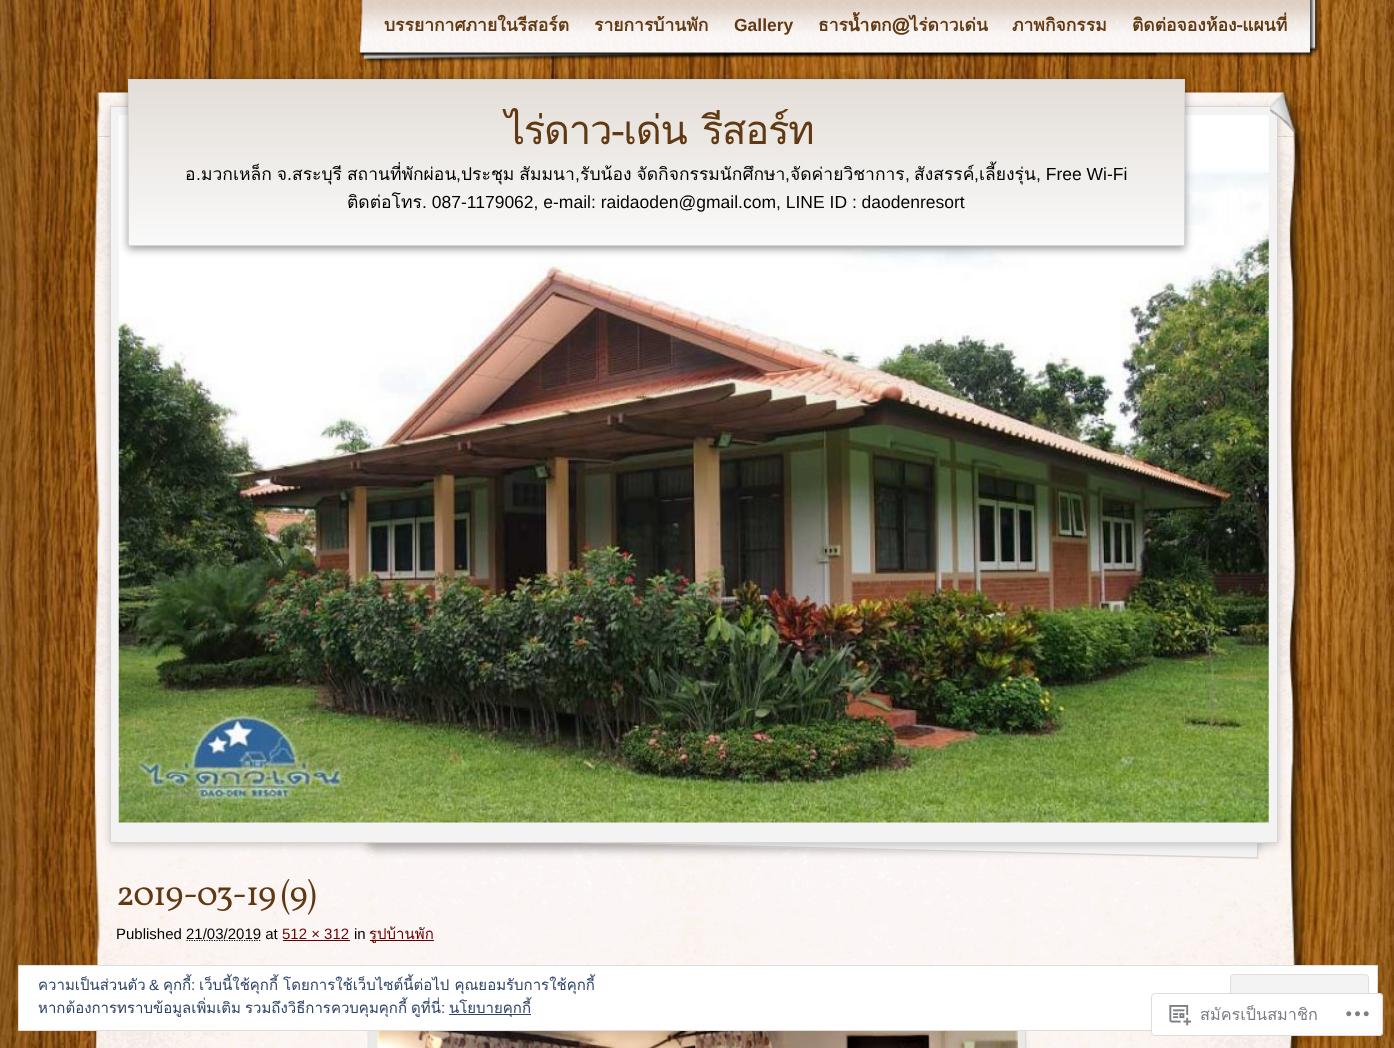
(async () => {
  const canvas = document.querySelector("canvas");
  canvas.width = 1394;
  canvas.height = 1048;
  const ctx = canvas.getContext("2d");
  ctx.miterLimit = 4;
  ctx.fontKerning = "normal";
  async function loadImage(src) {
    const img = new Image();
    img.src = src;
    await img.decode();
    return img;
  }
  let gradient, path;

  ctx.fillStyle = "#ffffff";
  ctx.fillRect(0, 0, 1394, 1048);
  ctx.drawImage(await loadImage("img/1.png"), 0, 0, 1394, 1048);
  ctx.drawImage(await loadImage("img/2.png"), 0, 0, 1394, 1048);
  ctx.drawImage(await loadImage("img/3.png"), 357, 0, 800, 64);
  ctx.drawImage(await loadImage("img/4.png"), 362, 0, 948, 58);
  ctx.drawImage(await loadImage("img/5.png"), 1310, 0, 10, 58);
  ctx.drawImage(await loadImage("img/9.png"), 91, 136, 1216, 912);
  ctx.drawImage(await loadImage("img/6.png"), 95, 89, 1212, 48);
  ctx.fillStyle = "rgba(0, 0, 0, 0.2)";
  ctx.filter = "blur(4px)";
  ctx.beginPath();
  ctx.rect(368, 706, 892, 145);
  ctx.fill();
  ctx.filter = "none";
  ctx.fillStyle = "#f3f3f3";
  path = new Path2D("M369 693L1262 714L1258 859L366 838Z");
  ctx.fill(path);
  path = new Path2D("M370 694L1261 714L1257.5 858L366.5 837.5Z");
  ctx.strokeStyle = "#d9d5d3";
  ctx.lineWidth = 1.3;
  ctx.stroke(path);
  ctx.fillStyle = "rgba(0, 0, 0, 0.2)";
  ctx.filter = "blur(4px)";
  ctx.beginPath();
  ctx.rect(110, 109, 1168, 736);
  ctx.fill();
  ctx.filter = "none";
  ctx.fillStyle = "#f3f3f3";
  ctx.beginPath();
  ctx.rect(110.5, 106.5, 1167, 736);
  ctx.fill();
  ctx.lineWidth = 1;
  ctx.stroke();
  ctx.drawImage(await loadImage("img/7.png"), 1270, 92, 32, 40);
  ctx.drawImage(await loadImage("img/8.png"), 118, 115, 1151, 708);
  ctx.fillStyle = "rgba(0, 0, 0, 0.4)";
  ctx.filter = "blur(4px)";
  ctx.beginPath();
  ctx.rect(128, 81, 1057, 168);
  ctx.fill();
  ctx.filter = "none";
  gradient = ctx.createLinearGradient(656, 80, 656, 245);
  gradient.addColorStop(0, "#e3ddd7");
  gradient.addColorStop(1, "#fafafa");
  ctx.fillStyle = gradient;
  ctx.fillRect(129, 80, 1055, 165);
  ctx.strokeRect(128.5, 79.5, 1056, 166);
  path = new Path2D("M186.5 940.5H261.5");
  ctx.strokeStyle = "#000000";
  ctx.lineWidth = 1.2;
  ctx.setLineDash([1.25, 1.25]);
  ctx.stroke(path);
  ctx.fillStyle = "#660000";
  ctx.fillRect(283, 940, 67, 1);
  ctx.fillRect(370, 940, 64, 1);
  ctx.drawImage(await loadImage("img/10.png"), 365, 1031, 665, 17);
  ctx.drawImage(await loadImage("img/11.png"), 377, 1031, 641, 17);
  ctx.fillStyle = "#ffffff";
  ctx.beginPath();
  ctx.rect(18.5, 965.5, 1359, 65);
  ctx.fill();
  ctx.strokeStyle = "#dedede";
  ctx.lineWidth = 1;
  ctx.setLineDash([]);
  ctx.stroke();
  ctx.fillStyle = "#f3f3f3";
  ctx.beginPath();
  ctx.roundRect(1230.5, 974.5, 138, 48, 3.5);
  ctx.fill();
  ctx.stroke();
  ctx.fillStyle = "#2e4467";
  ctx.fillRect(449, 1014, 82, 1);
  ctx.fillStyle = "rgba(255, 255, 255, 0.98)";
  ctx.beginPath();
  ctx.roundRect(1151, 993, 232, 43, 4);
  ctx.fill();
  ctx.beginPath();
  ctx.roundRect(1151.5, 993.5, 231, 42, 3.5);
  ctx.strokeStyle = "rgba(220, 220, 222, 0.98)";
  ctx.stroke();
  ctx.drawImage(await loadImage("img/12.png"), 1169, 1005, 22, 21);
  ctx.drawImage(await loadImage("img/13.png"), 1346, 1011, 23, 6);
  ctx.font = "bold 17.5px Loma";
  ctx.fillStyle = "#603913";
  ctx.fillText("บรรยากาศภายในรีสอร์ต", 384, 31);
  ctx.fillText("รายการบ้านพัก", 594, 31);
  ctx.font = "bold 17.5px Liberation Sans";
  ctx.fillText("Gallery", 734, 31);
  ctx.font = "bold 17.5px Loma";
  for (const [text, x, y] of [
    ["ธารน้ำตก@ไร่ดาวเด่น", 818, 31],
    ["ภาพกิจกรรม", 1012, 31],
    ["ติดต่อจองห้อง-แผนที่", 1132, 31],
  ]) {
    ctx.fillText(text, x, y);
  }
  ctx.letterSpacing = "-1.25px";
  ctx.wordSpacing = "3px";
  ctx.font = "40px Loma";
  ctx.fillText("ไร่ดาว-เด่น รีสอร์ท", 505, 144);
  ctx.letterSpacing = "0px";
  ctx.wordSpacing = "0px";
  ctx.font = "17.5px Loma";
  ctx.fillStyle = "#000000";
  ctx.fillText("อ", 185, 180);
  ctx.font = "17.5px Liberation Sans";
  ctx.fillText(".", 196, 180);
  ctx.wordSpacing = "-1px";
  ctx.font = "17.5px Loma";
  ctx.fillText("มวกเหล็ก จ", 201, 180);
  ctx.wordSpacing = "0px";
  ctx.font = "17.5px Liberation Sans";
  ctx.fillText(".", 287, 180);
  ctx.wordSpacing = "-1px";
  ctx.font = "17.5px Loma";
  ctx.fillText("สระบุรี สถานที่พักผ่อน", 292, 180);
  ctx.wordSpacing = "0px";
  ctx.font = "17.5px Liberation Sans";
  ctx.fillText(",", 456, 180);
  ctx.wordSpacing = "-1px";
  ctx.font = "17.5px Loma";
  ctx.fillText("ประชุม สัมมนา", 461, 180);
  ctx.wordSpacing = "0px";
  ctx.font = "17.5px Liberation Sans";
  ctx.fillText(", Free Wi-Fi", 1036, 180);
  ctx.fillText(",", 575, 180);
  ctx.wordSpacing = "-1px";
  ctx.font = "17.5px Loma";
  ctx.fillText("รับน้อง จัดกิจกรรมนักศึกษา", 580, 180);
  ctx.wordSpacing = "0px";
  ctx.font = "17.5px Liberation Sans";
  ctx.fillText(",", 785, 180);
  ctx.font = "17.5px Loma";
  ctx.fillText("จัดค่ายวิชาการ", 790, 180);
  ctx.font = "17.5px Liberation Sans";
  ctx.fillText(",", 905, 180);
  ctx.font = "17.5px Loma";
  ctx.fillText("สังสรรค์", 914, 180);
  ctx.font = "17.5px Liberation Sans";
  ctx.fillText(",", 974, 180);
  ctx.font = "17.5px Loma";
  ctx.fillText("เลี้ยงรุ่น", 979, 180);
  ctx.fillText("ติดต่อโทร", 347, 208);
  ctx.font = "17.5px Liberation Sans";
  ctx.fillText(". 087-1179062, e-mail: raidaoden@gmail.com, LINE ID : daodenresort", 422, 208);
  ctx.letterSpacing = "-1.25px";
  ctx.font = "35px Vollkorn";
  ctx.fillStyle = "#603913";
  ctx.fillText("2019-03-19 (9)", 116, 905);
  ctx.letterSpacing = "0px";
  ctx.font = "15px Liberation Sans";
  ctx.fillStyle = "#000000";
  ctx.fillText("Published", 116, 939);
  ctx.fillText("21/03/2019 at", 186, 939);
  ctx.fillStyle = "#660000";
  ctx.fillText("512 × 312", 282, 939);
  ctx.fillStyle = "#000000";
  ctx.fillText("in", 354, 939);
  ctx.font = "15px Loma";
  ctx.fillStyle = "#660000";
  ctx.fillText("รูปบ้านพัก", 369, 939);
  ctx.fillStyle = "#2e4467";
  ctx.fillText("ความเป็นส่วนตัว", 38, 990);
  ctx.font = "15px Liberation Sans";
  ctx.fillText("&", 149, 990);
  ctx.font = "15px Loma";
  ctx.fillText("คุกกี้", 163, 990);
  ctx.font = "15px Liberation Sans";
  ctx.fillText(":", 191, 990);
  ctx.font = "15px Loma";
  ctx.fillText("เว็บนี้ใช้คุกกี้ โดยการใช้เว็บไซต์นี้ต่อไป คุณยอมรับการใช้คุกกี้", 199, 990);
  ctx.wordSpacing = "-1px";
  ctx.fillText("หากต้องการทราบข้อมูลเพิ่มเติม รวมถึงวิธีการควบคุมคุกกี้ ดูที่นี่", 38, 1013);
  ctx.wordSpacing = "0px";
  ctx.font = "15px Liberation Sans";
  ctx.fillText(":", 441, 1013);
  ctx.font = "15px Loma";
  ctx.fillText("นโยบายคุกกี้", 449, 1013);
  ctx.font = "16.25px Loma";
  ctx.fillStyle = "#7b7f84";
  ctx.fillText("สมัครเป็นสมาชิก", 1200, 1020);
})();
